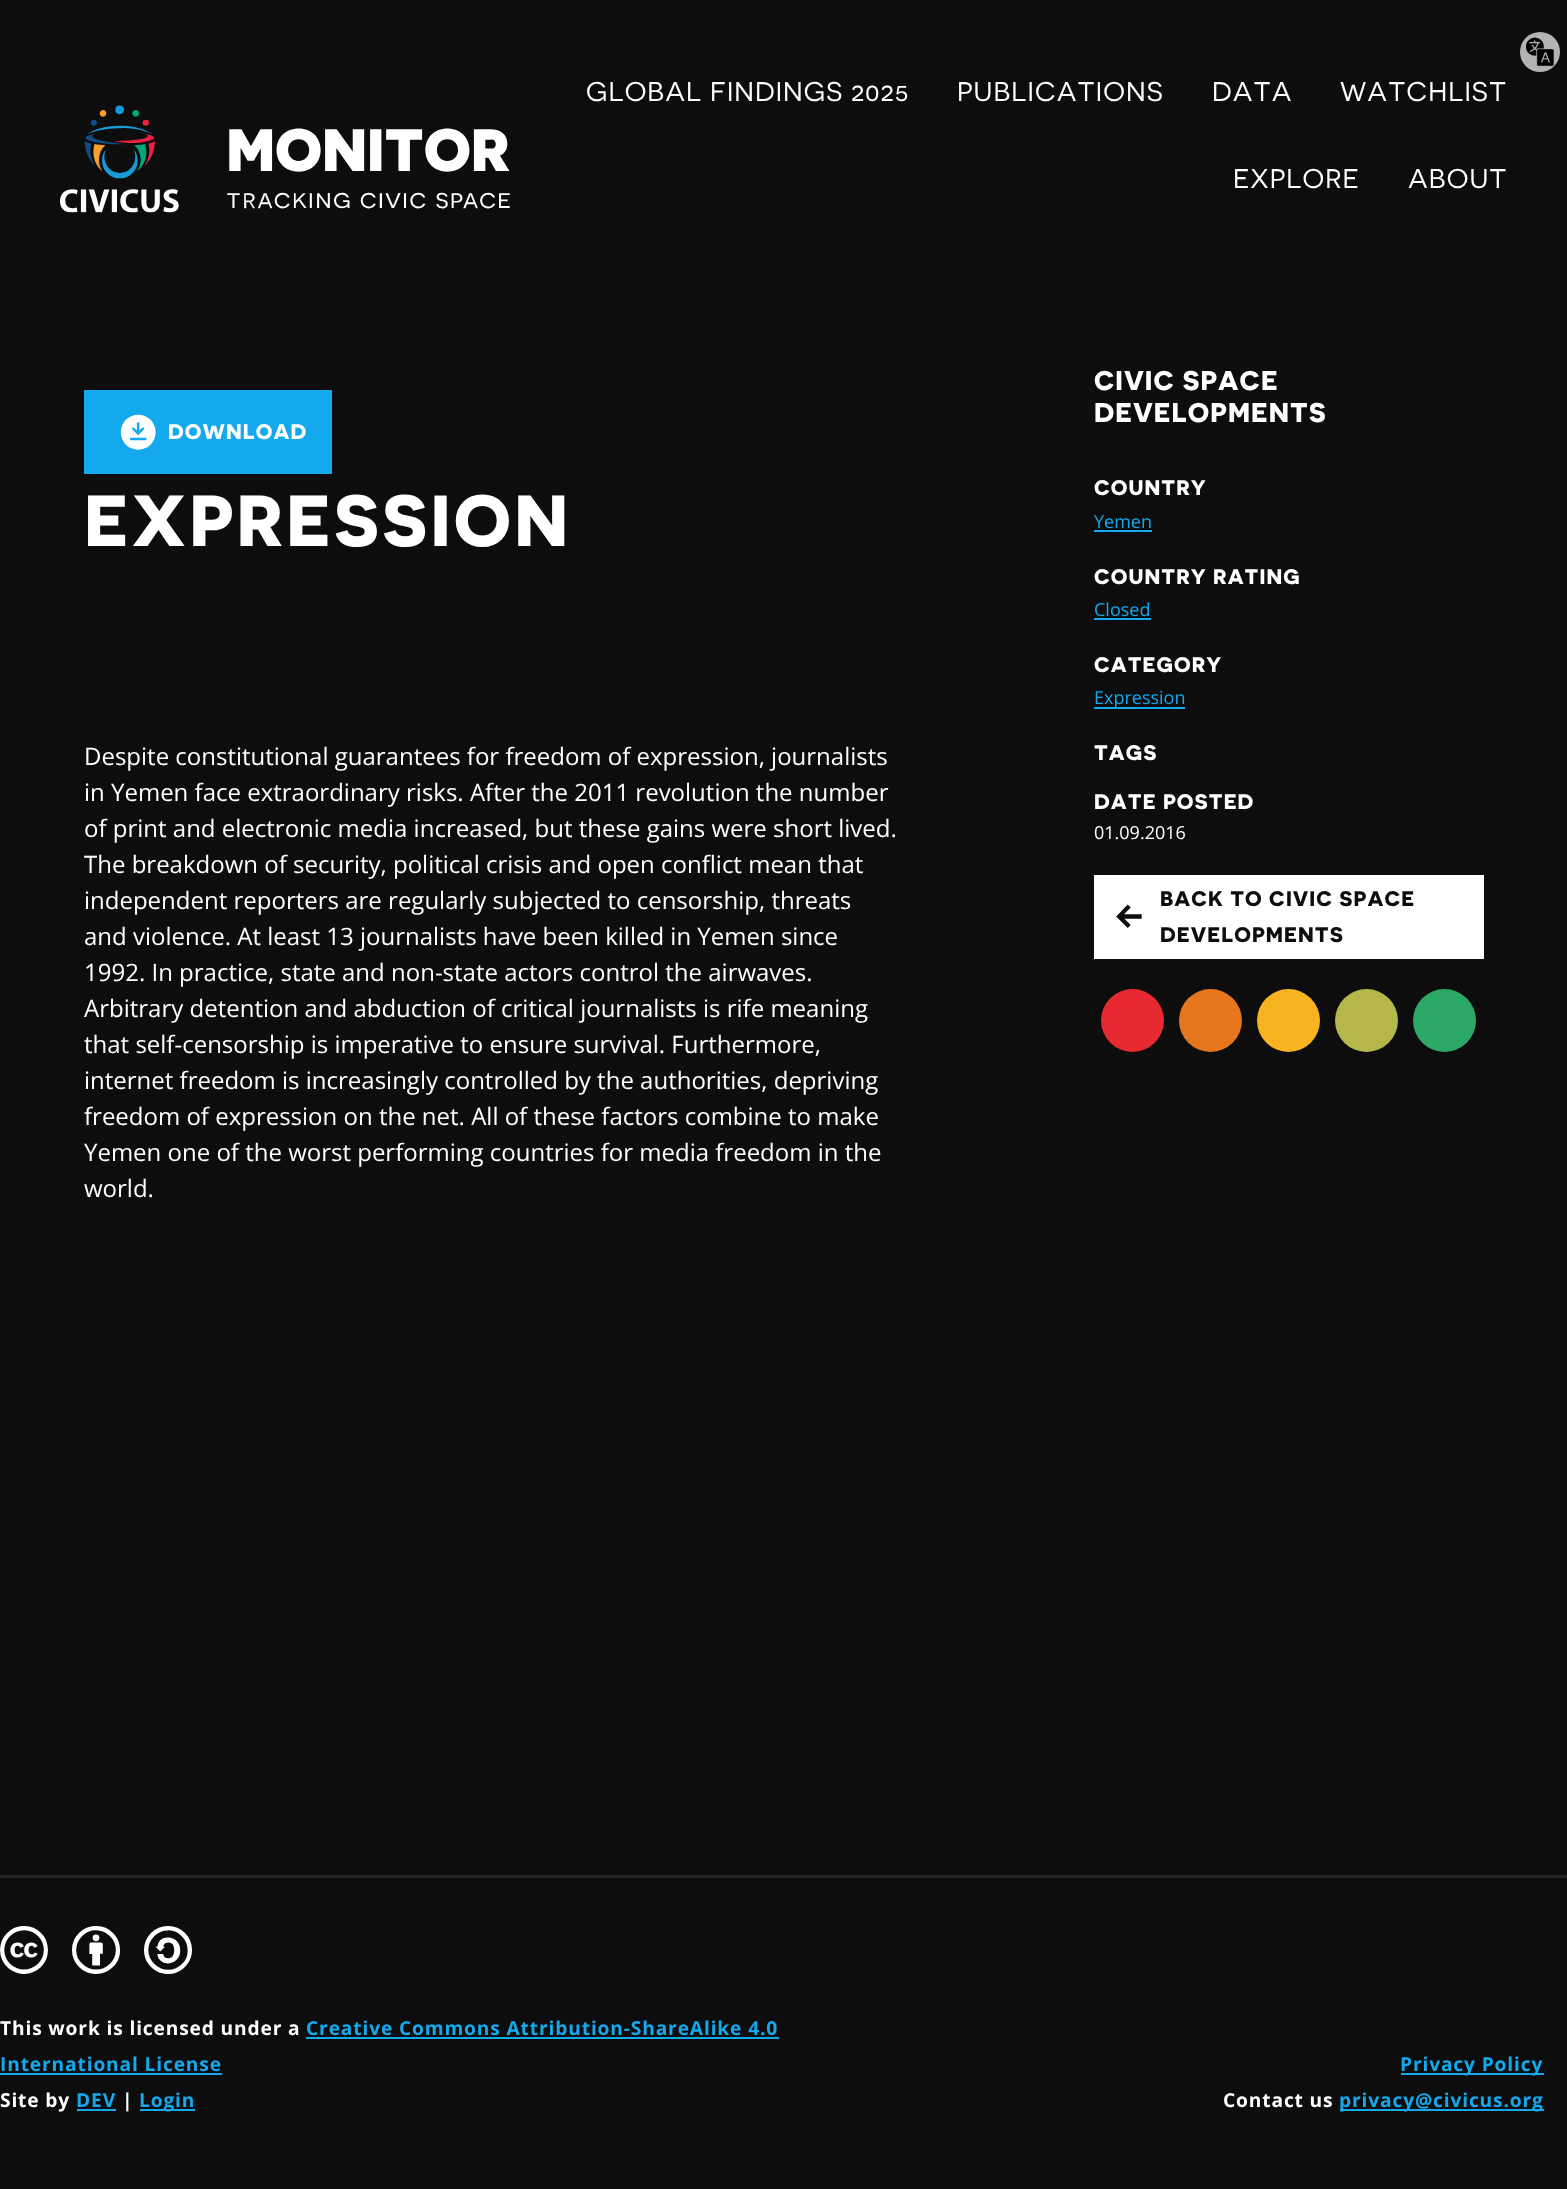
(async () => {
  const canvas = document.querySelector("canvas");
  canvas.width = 1567;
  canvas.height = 2189;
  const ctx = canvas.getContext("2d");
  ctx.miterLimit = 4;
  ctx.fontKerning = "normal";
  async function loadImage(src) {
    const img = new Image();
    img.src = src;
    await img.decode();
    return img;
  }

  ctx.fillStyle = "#0d0d0d";
  ctx.fillRect(0, 0, 1567, 2189);
  ctx.fillStyle = "#b3b3b3";
  ctx.beginPath();
  ctx.arc(1540, 52, 20, 0, Math.PI * 2);
  ctx.fill();
  ctx.drawImage(await loadImage("img/1.png"), 1526, 37, 28, 30);
  ctx.drawImage(await loadImage("img/2.png"), 60, 105, 450, 108);
  ctx.fillStyle = "#14a9ed";
  ctx.fillRect(84, 390, 248, 84);
  ctx.drawImage(await loadImage("img/3.png"), 120, 414, 36, 36);
  for (const [x, y, w, h, color] of [
    [1094, 530, 58, 2, "#14a9ed"],
    [1094, 618, 57, 2, "#14a9ed"],
    [1094, 707, 91, 2, "#14a9ed"],
    [1094, 875, 390, 84, "#ffffff"],
  ]) {
    ctx.fillStyle = color;
    ctx.fillRect(x, y, w, h);
  }
  ctx.drawImage(await loadImage("img/4.png"), 1116, 904, 26, 24);
  ctx.fillStyle = "#e72932";
  ctx.beginPath();
  ctx.arc(1132.5, 1020.5, 31.5, 0, Math.PI * 2);
  ctx.fill();
  ctx.fillStyle = "#e6761e";
  ctx.beginPath();
  ctx.arc(1210.5, 1020.5, 31.5, 0, Math.PI * 2);
  ctx.fill();
  ctx.fillStyle = "#f7b420";
  ctx.beginPath();
  ctx.arc(1288.5, 1020.5, 31.5, 0, Math.PI * 2);
  ctx.fill();
  ctx.fillStyle = "#b5b74b";
  ctx.beginPath();
  ctx.arc(1366.5, 1020.5, 31.5, 0, Math.PI * 2);
  ctx.fill();
  ctx.fillStyle = "#2ca867";
  ctx.beginPath();
  ctx.arc(1444.5, 1020.5, 31.5, 0, Math.PI * 2);
  ctx.fill();
  ctx.fillStyle = "#252524";
  ctx.fillRect(0, 1875, 1567, 3);
  ctx.drawImage(await loadImage("img/5.png"), 0, 1926, 48, 48);
  ctx.drawImage(await loadImage("img/6.png"), 72, 1926, 48, 48);
  ctx.drawImage(await loadImage("img/7.png"), 144, 1926, 48, 48);
  for (const [x, y, w, h, color] of [
    [306, 2037, 473, 2, "#14a9ed"],
    [0, 2073, 222, 2, "#14a9ed"],
    [77, 2109, 39, 2, "#14a9ed"],
    [140, 2109, 55, 2, "#14a9ed"],
    [1401, 2073, 143, 2, "#14a9ed"],
    [1340, 2109, 204, 2, "#14a9ed"],
  ]) {
    ctx.fillStyle = color;
    ctx.fillRect(x, y, w, h);
  }
  ctx.letterSpacing = "1.05px";
  ctx.font = "27px 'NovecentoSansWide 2'";
  ctx.fillStyle = "#ffffff";
  for (const [text, x, y] of [
    ["GLOBAL FINDINGS 2025", 586, 101],
    ["PUBLICATIONS", 957, 101],
    ["DATA", 1212, 101],
    ["WATCHLIST", 1340, 101],
    ["EXPLORE", 1233, 188],
    ["ABOUT", 1408, 188],
  ]) {
    ctx.fillText(text, x, y);
  }
  ctx.font = "21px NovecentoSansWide";
  ctx.fillText("DOWNLOAD", 168, 439);
  ctx.letterSpacing = "3.25px";
  ctx.font = "72px NovecentoSansWide";
  ctx.fillText("EXPRESSION", 84, 546);
  ctx.letterSpacing = "0px";
  ctx.font = "24px Open Sans";
  for (const [text, x, y] of [
    ["Despite constitutional guarantees for freedom of expression, journalists", 84, 765],
    ["in Yemen face extraordinary risks. After the 2011 revolution the number", 84, 801],
    ["of print and electronic media increased, but these gains were short lived.", 84, 837],
    ["The breakdown of security, political crisis and open conflict mean that", 84, 873],
    ["independent reporters are regularly subjected to censorship, threats", 84, 909],
    ["and violence. At least 13 journalists have been killed in Yemen since", 84, 945],
    ["1992. In practice, state and non-state actors control the airwaves.", 84, 981],
    ["Arbitrary detention and abduction of critical journalists is rife meaning", 84, 1017],
    ["that self-censorship is imperative to ensure survival. Furthermore,", 84, 1053],
    ["internet freedom is increasingly controlled by the authorities, depriving", 84, 1089],
    ["freedom of expression on the net. All of these factors combine to make", 84, 1125],
    ["Yemen one of the worst performing countries for media freedom in the", 84, 1161],
    ["world.", 84, 1197],
  ]) {
    ctx.fillText(text, x, y);
  }
  ctx.letterSpacing = "1.05px";
  ctx.font = "27px NovecentoSansWide";
  ctx.fillText("CIVIC SPACE", 1094, 390);
  ctx.fillText("DEVELOPMENTS", 1094, 422);
  ctx.font = "21px NovecentoSansWide";
  ctx.fillText("COUNTRY", 1094, 495);
  ctx.letterSpacing = "0px";
  ctx.font = "18px Open Sans";
  ctx.fillStyle = "#14a9ed";
  ctx.fillText("Yemen", 1094, 528);
  ctx.letterSpacing = "1.05px";
  ctx.font = "21px NovecentoSansWide";
  ctx.fillStyle = "#ffffff";
  ctx.fillText("COUNTRY RATING", 1094, 584);
  ctx.letterSpacing = "0px";
  ctx.font = "18px Open Sans";
  ctx.fillStyle = "#14a9ed";
  ctx.fillText("Closed", 1094, 616);
  ctx.letterSpacing = "1.05px";
  ctx.font = "21px NovecentoSansWide";
  ctx.fillStyle = "#ffffff";
  ctx.fillText("CATEGORY", 1094, 672);
  ctx.letterSpacing = "0px";
  ctx.font = "18px Open Sans";
  ctx.fillStyle = "#14a9ed";
  ctx.fillText("Expression", 1094, 704);
  ctx.letterSpacing = "1.05px";
  ctx.font = "21px NovecentoSansWide";
  ctx.fillStyle = "#ffffff";
  ctx.fillText("TAGS", 1094, 760);
  ctx.fillText("DATE POSTED", 1094, 809);
  ctx.letterSpacing = "0px";
  ctx.font = "18px Open Sans";
  ctx.fillText("01.09.2016", 1094, 839);
  ctx.letterSpacing = "1.05px";
  ctx.font = "21px NovecentoSansWide";
  ctx.fillStyle = "#0d0d0d";
  ctx.fillText("BACK TO CIVIC SPACE", 1160, 906);
  ctx.fillText("DEVELOPMENTS", 1160, 942);
  ctx.letterSpacing = "0.85px";
  ctx.font = "bold 19.2px Open Sans";
  ctx.fillStyle = "#ffffff";
  ctx.fillText("This work is licensed under a", 0, 2035);
  ctx.fillStyle = "#14a9ed";
  ctx.fillText("Creative Commons Attribution-ShareAlike 4.0", 306, 2035);
  ctx.fillText("International License", 0, 2071);
  ctx.fillStyle = "#ffffff";
  ctx.fillText("Site by", 0, 2107);
  ctx.fillStyle = "#14a9ed";
  ctx.fillText("DEV", 76, 2107);
  ctx.fillStyle = "#ffffff";
  ctx.fillText("|", 122, 2107);
  ctx.fillStyle = "#14a9ed";
  ctx.fillText("Login", 139, 2107);
  ctx.fillText("Privacy Policy", 1400, 2071);
  ctx.fillStyle = "#ffffff";
  ctx.fillText("Contact us", 1223, 2107);
  ctx.fillStyle = "#14a9ed";
  ctx.fillText("privacy@civicus.org", 1339, 2107);
})();
